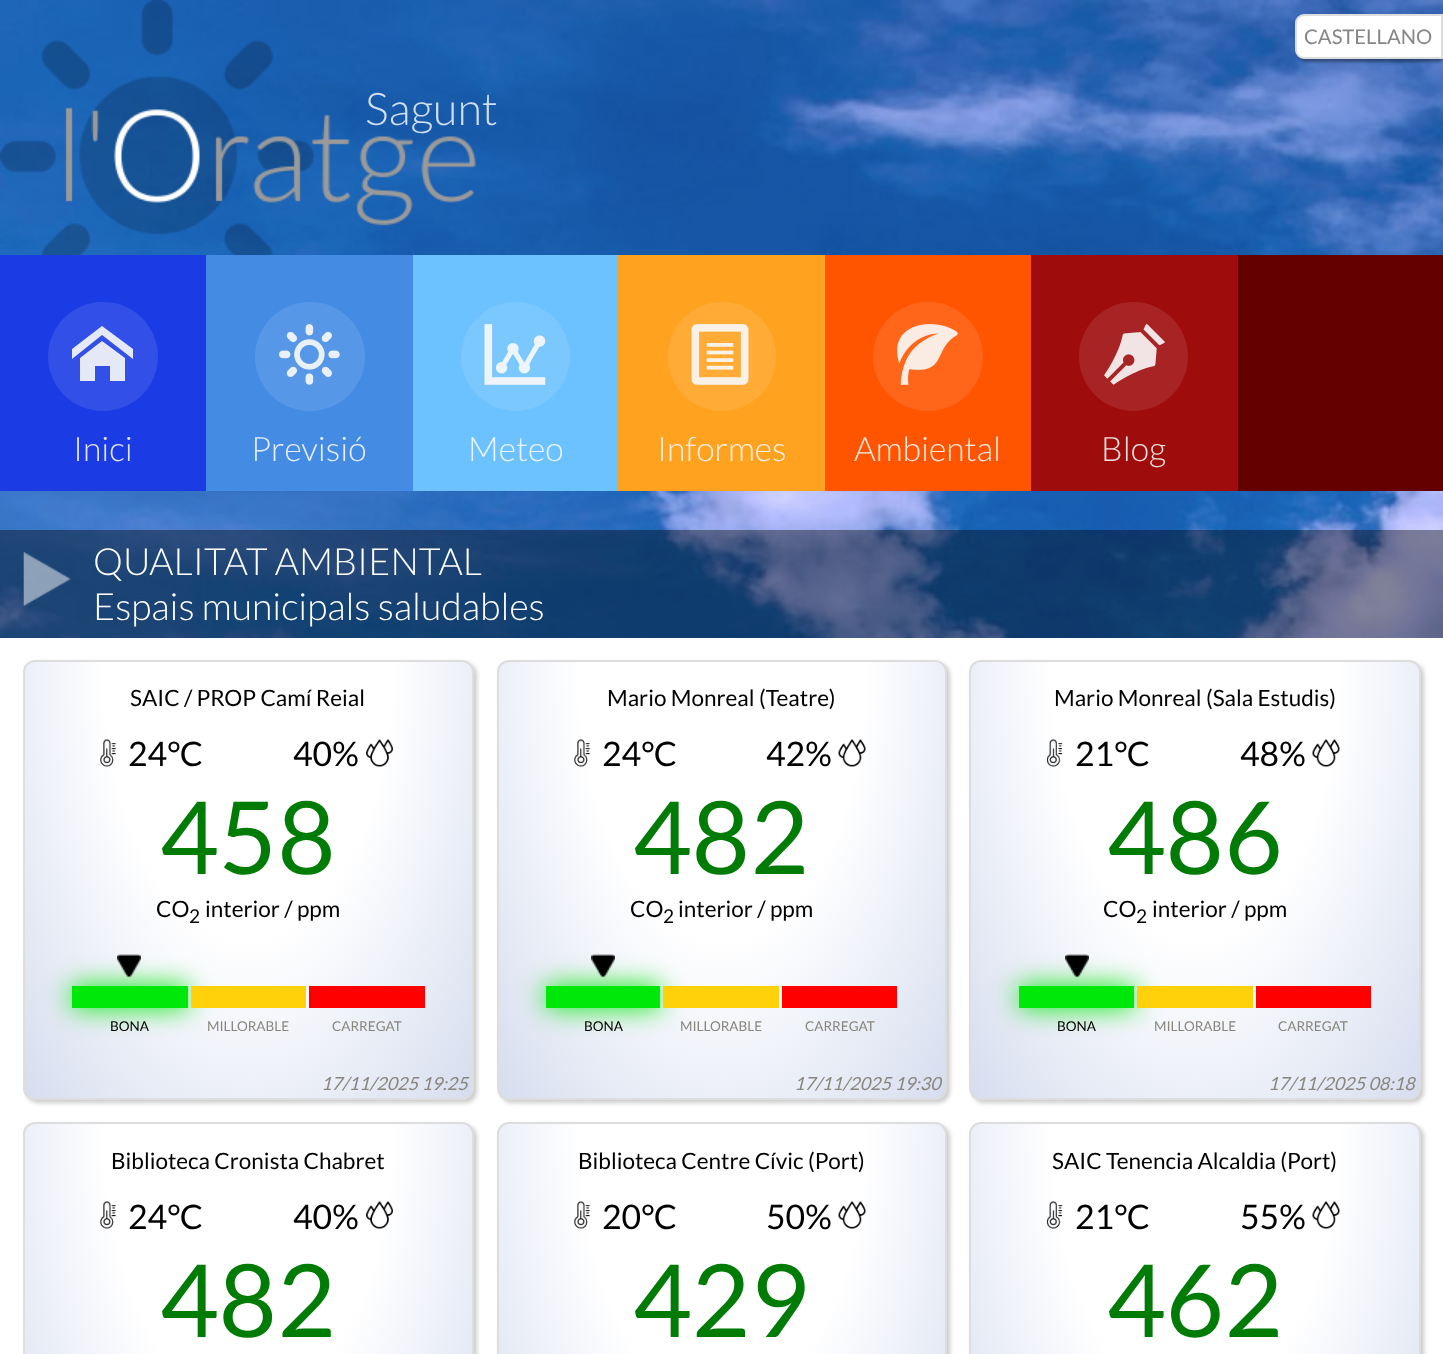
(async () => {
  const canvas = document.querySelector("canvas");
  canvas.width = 1443;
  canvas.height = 1354;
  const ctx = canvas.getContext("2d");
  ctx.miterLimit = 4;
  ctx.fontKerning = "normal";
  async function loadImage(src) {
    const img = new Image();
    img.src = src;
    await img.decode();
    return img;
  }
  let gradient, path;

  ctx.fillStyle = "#ffffff";
  ctx.fillRect(0, 0, 1443, 1354);
  ctx.drawImage(await loadImage("img/1.png"), 0, 0, 1443, 638);
  ctx.fillStyle = "rgba(0, 0, 0, 0.38)";
  ctx.filter = "blur(1.5px)";
  ctx.beginPath();
  ctx.roundRect(1298, 17, 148, 45, 9);
  ctx.fill();
  ctx.filter = "none";
  ctx.fillStyle = "#ffffff";
  ctx.beginPath();
  ctx.roundRect(1296, 15, 146, 43, [8, 0, 0, 8]);
  ctx.fill();
  ctx.strokeStyle = "#dddddd";
  ctx.lineWidth = 2;
  ctx.stroke();
  ctx.drawImage(await loadImage("img/2.png"), 0, 0, 476, 255);
  ctx.fillStyle = "#1b3ce4";
  ctx.fillRect(0, 255, 206, 236);
  ctx.fillStyle = "#3250e7";
  ctx.beginPath();
  ctx.roundRect(48, 302, 110, 109, 54.5);
  ctx.fill();
  ctx.fillStyle = "#e5e8f7";
  path = new Path2D("M133 359L102 335L72 359V349L102 326L133 349ZM125 358V381H110V366H95V381H80V358L102 341Z");
  ctx.fill(path);
  ctx.fillStyle = "#448be4";
  ctx.fillRect(206, 255, 207, 236);
  ctx.fillStyle = "#5797e7";
  ctx.beginPath();
  ctx.roundRect(255, 302, 110, 109, 54.5);
  ctx.fill();
  ctx.drawImage(await loadImage("img/3.png"), 279, 324, 61, 61);
  ctx.fillStyle = "#6cc2ff";
  ctx.fillRect(413, 255, 205, 236);
  ctx.fillStyle = "#7bc8ff";
  ctx.beginPath();
  ctx.arc(515.5, 356.5, 54.5, 0, Math.PI * 2);
  ctx.fill();
  ctx.drawImage(await loadImage("img/4.png"), 484, 324, 62, 61);
  ctx.fillStyle = "#ffa220";
  ctx.fillRect(618, 255, 207, 236);
  ctx.fillStyle = "#ffab36";
  ctx.beginPath();
  ctx.roundRect(668, 302, 108, 109, 54);
  ctx.fill();
  ctx.drawImage(await loadImage("img/5.png"), 691, 324, 58, 61);
  ctx.fillStyle = "#ff5500";
  ctx.fillRect(825, 255, 206, 236);
  ctx.fillStyle = "#ff661a";
  ctx.beginPath();
  ctx.roundRect(873, 302, 110, 109, 54.5);
  ctx.fill();
  ctx.drawImage(await loadImage("img/6.png"), 897, 324, 61, 61);
  ctx.fillStyle = "#9e0c0c";
  ctx.fillRect(1031, 255, 207, 236);
  ctx.fillStyle = "#a82424";
  ctx.beginPath();
  ctx.arc(1133.5, 356.5, 54.5, 0, Math.PI * 2);
  ctx.fill();
  ctx.drawImage(await loadImage("img/7.png"), 1104, 324, 61, 61);
  ctx.fillStyle = "#650000";
  ctx.fillRect(1238, 255, 205, 236);
  ctx.fillStyle = "rgba(0, 0, 0, 0.4)";
  ctx.fillRect(0, 530, 1443, 108);
  ctx.drawImage(await loadImage("img/8.png"), 23, 552, 48, 54);
  ctx.fillStyle = "rgba(0, 0, 0, 0.2)";
  ctx.filter = "blur(2px)";
  ctx.beginPath();
  ctx.roundRect(26, 663, 451, 440, 12);
  ctx.fill();
  ctx.filter = "none";
  ctx.save();
  ctx.beginPath();
  ctx.roundRect(23, 660, 451, 440, 12);
  ctx.clip();
  gradient = ctx.createRadialGradient(248, 340.12, 0, 248, 340.12, 317);
  gradient.addColorStop(0.45, "#ffffff");
  gradient.addColorStop(1, "#d6ddef");
  ctx.fillStyle = gradient;
  ctx.beginPath();
  ctx.rect(24, 662, 449, 436);
  ctx.save();
  ctx.clip();
  ctx.scale(1, 617 / 317);
  ctx.fillRect(0, 0, 1443, 696);
  ctx.restore();
  ctx.restore();
  ctx.beginPath();
  ctx.roundRect(24, 661, 449, 438, 11);
  ctx.stroke();
  ctx.drawImage(await loadImage("img/9.png"), 99, 739, 17, 28);
  ctx.drawImage(await loadImage("img/10.png"), 366, 739, 27, 28);
  ctx.fillStyle = "#00e809";
  ctx.filter = "blur(13.5px)";
  ctx.beginPath();
  ctx.rect(72, 986, 116, 22);
  ctx.fill();
  ctx.filter = "none";
  for (const [x, y, w, h, color] of [
    [72, 986, 116, 22, "#00e809"],
    [191, 986, 115, 22, "#ffd10b"],
    [309, 986, 116, 22, "#ff0000"],
  ]) {
    ctx.fillStyle = color;
    ctx.fillRect(x, y, w, h);
  }
  ctx.drawImage(await loadImage("img/11.png"), 117, 954, 24, 24);
  ctx.fillStyle = "rgba(0, 0, 0, 0.2)";
  ctx.filter = "blur(2px)";
  ctx.beginPath();
  ctx.roundRect(500, 663, 450, 440, 12);
  ctx.fill();
  ctx.filter = "none";
  ctx.save();
  ctx.beginPath();
  ctx.roundRect(497, 660, 450, 440, 12);
  ctx.clip();
  gradient = ctx.createRadialGradient(722, 339.05, 0, 722, 339.05, 316);
  gradient.addColorStop(0.45, "#ffffff");
  gradient.addColorStop(1, "#d6ddef");
  ctx.fillStyle = gradient;
  ctx.beginPath();
  ctx.rect(498, 662, 447, 436);
  ctx.save();
  ctx.clip();
  ctx.scale(1, 617 / 316);
  ctx.fillRect(0, 0, 1443, 694);
  ctx.restore();
  ctx.restore();
  ctx.beginPath();
  ctx.roundRect(498, 661, 448, 438, 11);
  ctx.stroke();
  ctx.drawImage(await loadImage("img/9.png"), 573, 739, 17, 28);
  ctx.drawImage(await loadImage("img/12.png"), 838, 739, 28, 28);
  ctx.fillStyle = "#00e809";
  ctx.filter = "blur(13.5px)";
  ctx.beginPath();
  ctx.rect(546, 986, 114, 22);
  ctx.fill();
  ctx.filter = "none";
  for (const [x, y, w, h, color] of [
    [546, 986, 114, 22, "#00e809"],
    [663, 986, 116, 22, "#ffd10b"],
    [782, 986, 115, 22, "#ff0000"],
  ]) {
    ctx.fillStyle = color;
    ctx.fillRect(x, y, w, h);
  }
  ctx.drawImage(await loadImage("img/13.png"), 591, 954, 24, 24);
  ctx.fillStyle = "rgba(0, 0, 0, 0.2)";
  ctx.filter = "blur(2px)";
  ctx.beginPath();
  ctx.roundRect(972, 663, 452, 440, 12);
  ctx.fill();
  ctx.filter = "none";
  ctx.save();
  ctx.beginPath();
  ctx.roundRect(969, 660, 452, 440, 12);
  ctx.clip();
  gradient = ctx.createRadialGradient(1195, 340.12, 0, 1195, 340.12, 317);
  gradient.addColorStop(0.45, "#ffffff");
  gradient.addColorStop(1, "#d6ddef");
  ctx.fillStyle = gradient;
  ctx.beginPath();
  ctx.rect(971, 662, 448, 436);
  ctx.save();
  ctx.clip();
  ctx.scale(1, 617 / 317);
  ctx.fillRect(0, 0, 1443, 696);
  ctx.restore();
  ctx.restore();
  ctx.beginPath();
  ctx.roundRect(970, 661, 450, 438, 11);
  ctx.stroke();
  ctx.drawImage(await loadImage("img/14.png"), 1046, 739, 17, 28);
  ctx.drawImage(await loadImage("img/15.png"), 1312, 739, 28, 28);
  ctx.fillStyle = "#00e809";
  ctx.filter = "blur(13.5px)";
  ctx.beginPath();
  ctx.rect(1019, 986, 115, 22);
  ctx.fill();
  ctx.filter = "none";
  for (const [x, y, w, h, color] of [
    [1019, 986, 115, 22, "#00e809"],
    [1137, 986, 116, 22, "#ffd10b"],
    [1256, 986, 115, 22, "#ff0000"],
  ]) {
    ctx.fillStyle = color;
    ctx.fillRect(x, y, w, h);
  }
  ctx.drawImage(await loadImage("img/16.png"), 1065, 954, 24, 24);
  ctx.fillStyle = "rgba(0, 0, 0, 0.2)";
  ctx.filter = "blur(2px)";
  ctx.beginPath();
  ctx.roundRect(26, 1125, 451, 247, 12);
  ctx.fill();
  ctx.filter = "none";
  ctx.save();
  ctx.beginPath();
  ctx.roundRect(23, 1122, 451, 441, 12);
  ctx.clip();
  gradient = ctx.createRadialGradient(248, 575.62, 0, 248, 575.62, 317);
  gradient.addColorStop(0.45, "#ffffff");
  gradient.addColorStop(1, "#d6ddef");
  ctx.fillStyle = gradient;
  ctx.beginPath();
  ctx.rect(24, 1124, 449, 230);
  ctx.save();
  ctx.clip();
  ctx.scale(1, 619 / 317);
  ctx.fillRect(0, 0, 1443, 694);
  ctx.restore();
  ctx.restore();
  ctx.beginPath();
  ctx.roundRect(24, 1123, 449, 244, 11);
  ctx.stroke();
  ctx.drawImage(await loadImage("img/17.png"), 99, 1201, 17, 28);
  ctx.drawImage(await loadImage("img/18.png"), 366, 1201, 27, 28);
  ctx.filter = "blur(2px)";
  ctx.beginPath();
  ctx.roundRect(500, 1125, 450, 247, 12);
  ctx.fill();
  ctx.filter = "none";
  ctx.save();
  ctx.beginPath();
  ctx.roundRect(497, 1122, 450, 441, 12);
  ctx.clip();
  gradient = ctx.createRadialGradient(722, 573.8, 0, 722, 573.8, 316);
  gradient.addColorStop(0.45, "#ffffff");
  gradient.addColorStop(1, "#d6ddef");
  ctx.fillStyle = gradient;
  ctx.beginPath();
  ctx.rect(498, 1124, 447, 230);
  ctx.save();
  ctx.clip();
  ctx.scale(1, 619 / 316);
  ctx.fillRect(0, 0, 1443, 692);
  ctx.restore();
  ctx.restore();
  ctx.beginPath();
  ctx.roundRect(498, 1123, 448, 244, 11);
  ctx.stroke();
  ctx.drawImage(await loadImage("img/17.png"), 573, 1201, 17, 28);
  ctx.drawImage(await loadImage("img/19.png"), 838, 1201, 28, 28);
  ctx.filter = "blur(2px)";
  ctx.beginPath();
  ctx.roundRect(972, 1125, 452, 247, 12);
  ctx.fill();
  ctx.filter = "none";
  ctx.save();
  ctx.beginPath();
  ctx.roundRect(969, 1122, 452, 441, 12);
  ctx.clip();
  gradient = ctx.createRadialGradient(1195, 575.62, 0, 1195, 575.62, 317);
  gradient.addColorStop(0.45, "#ffffff");
  gradient.addColorStop(1, "#d6ddef");
  ctx.fillStyle = gradient;
  ctx.beginPath();
  ctx.rect(971, 1124, 448, 230);
  ctx.save();
  ctx.clip();
  ctx.scale(1, 619 / 317);
  ctx.fillRect(0, 0, 1443, 694);
  ctx.restore();
  ctx.restore();
  ctx.beginPath();
  ctx.roundRect(970, 1123, 450, 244, 11);
  ctx.stroke();
  ctx.drawImage(await loadImage("img/20.png"), 1046, 1201, 17, 28);
  ctx.drawImage(await loadImage("img/21.png"), 1312, 1201, 28, 28);
  ctx.font = "20.25px Lato";
  ctx.fillStyle = "#868686";
  ctx.fillText("CASTELLANO", 1304, 44);
  ctx.font = "300 45px Lato";
  ctx.fillStyle = "#d1deed";
  ctx.fillText("Sagunt", 365, 125);
  ctx.font = "300 33.75px Lato";
  ctx.fillStyle = "#e3e6f7";
  ctx.fillText("Inici", 73, 461);
  ctx.fillStyle = "#e7eef7";
  ctx.fillText("Previsió", 251, 461);
  ctx.fillStyle = "#ebf4fa";
  ctx.fillText("Meteo", 468, 461);
  ctx.fillStyle = "#faf0e3";
  ctx.fillText("Informes", 657, 461);
  ctx.fillStyle = "#fae9e0";
  ctx.fillText("Ambiental", 854, 461);
  ctx.fillStyle = "#f0e1e1";
  ctx.fillText("Blog", 1101, 461);
  ctx.font = "300 37.5px Lato";
  ctx.fillStyle = "#ffffff";
  ctx.fillText("QUALITAT AMBIENTAL", 93, 575);
  ctx.fillText("Espais municipals saludables", 93, 620);
  ctx.font = "22.5px Lato";
  ctx.fillStyle = "#000000";
  ctx.fillText("SAIC / PROP Camí Reial", 130, 706);
  ctx.font = "33.75px Lato";
  ctx.fillText("24°C", 128, 766);
  ctx.fillText("40%", 293, 766);
  ctx.font = "101px Lato";
  ctx.fillStyle = "#007b05";
  ctx.fillText("458", 160, 874);
  ctx.font = "22.5px Lato";
  ctx.fillStyle = "#000000";
  ctx.fillText("CO", 156, 917);
  ctx.font = "19px Lato";
  ctx.fillText("2", 189, 923);
  ctx.font = "22.5px Lato";
  ctx.fillText("interior / ppm", 205, 917);
  ctx.font = "13.5px Lato";
  ctx.fillText("BONA", 110, 1031);
  ctx.fillStyle = "#89867e";
  ctx.fillText("MILLORABLE", 207, 1031);
  ctx.fillText("CARREGAT", 332, 1031);
  ctx.font = "italic 18px Lato";
  ctx.fillText("17/11/2025 19:25", 321, 1090);
  ctx.font = "22.5px Lato";
  ctx.fillStyle = "#000000";
  ctx.fillText("Mario Monreal (Teatre)", 607, 706);
  ctx.font = "33.75px Lato";
  ctx.fillText("24°C", 602, 766);
  ctx.fillText("42%", 766, 766);
  ctx.font = "101px Lato";
  ctx.fillStyle = "#007b05";
  ctx.fillText("482", 633, 874);
  ctx.font = "22.5px Lato";
  ctx.fillStyle = "#000000";
  ctx.fillText("CO", 630, 917);
  ctx.font = "19px Lato";
  ctx.fillText("2", 663, 923);
  ctx.font = "22.5px Lato";
  ctx.fillText("interior / ppm", 678, 917);
  ctx.font = "13.5px Lato";
  ctx.fillText("BONA", 584, 1031);
  ctx.fillStyle = "#89867e";
  ctx.fillText("MILLORABLE", 680, 1031);
  ctx.fillText("CARREGAT", 805, 1031);
  ctx.font = "italic 18px Lato";
  ctx.fillText("17/11/2025 19:30", 794, 1090);
  ctx.font = "22.5px Lato";
  ctx.fillStyle = "#000000";
  ctx.fillText("Mario Monreal (Sala Estudis)", 1054, 706);
  ctx.font = "33.75px Lato";
  ctx.fillText("21°C", 1075, 766);
  ctx.fillText("48%", 1240, 766);
  ctx.font = "101px Lato";
  ctx.fillStyle = "#007b05";
  ctx.fillText("486", 1107, 874);
  ctx.font = "22.5px Lato";
  ctx.fillStyle = "#000000";
  ctx.fillText("CO", 1103, 917);
  ctx.font = "19px Lato";
  ctx.fillText("2", 1136, 923);
  ctx.font = "22.5px Lato";
  ctx.fillText("interior / ppm", 1152, 917);
  ctx.font = "13.5px Lato";
  ctx.fillText("BONA", 1057, 1031);
  ctx.fillStyle = "#89867e";
  ctx.fillText("MILLORABLE", 1154, 1031);
  ctx.fillText("CARREGAT", 1278, 1031);
  ctx.font = "italic 18px Lato";
  ctx.fillText("17/11/2025 08:18", 1268, 1090);
  ctx.font = "22.5px Lato";
  ctx.fillStyle = "#000000";
  ctx.fillText("Biblioteca Cronista Chabret", 111, 1169);
  ctx.font = "33.75px Lato";
  ctx.fillText("24°C", 128, 1229);
  ctx.fillText("40%", 293, 1229);
  ctx.font = "101px Lato";
  ctx.fillStyle = "#007b05";
  ctx.fillText("482", 160, 1337);
  ctx.font = "22.5px Lato";
  ctx.fillStyle = "#000000";
  ctx.fillText("Biblioteca Centre Cívic (Port)", 578, 1169);
  ctx.font = "33.75px Lato";
  ctx.fillText("20°C", 602, 1229);
  ctx.fillText("50%", 766, 1229);
  ctx.font = "101px Lato";
  ctx.fillStyle = "#007b05";
  ctx.fillText("429", 633, 1337);
  ctx.font = "22.5px Lato";
  ctx.fillStyle = "#000000";
  ctx.fillText("SAIC Tenencia Alcaldia (Port)", 1052, 1169);
  ctx.font = "33.75px Lato";
  ctx.fillText("21°C", 1075, 1229);
  ctx.fillText("55%", 1240, 1229);
  ctx.font = "101px Lato";
  ctx.fillStyle = "#007b05";
  ctx.fillText("462", 1107, 1337);
})();
